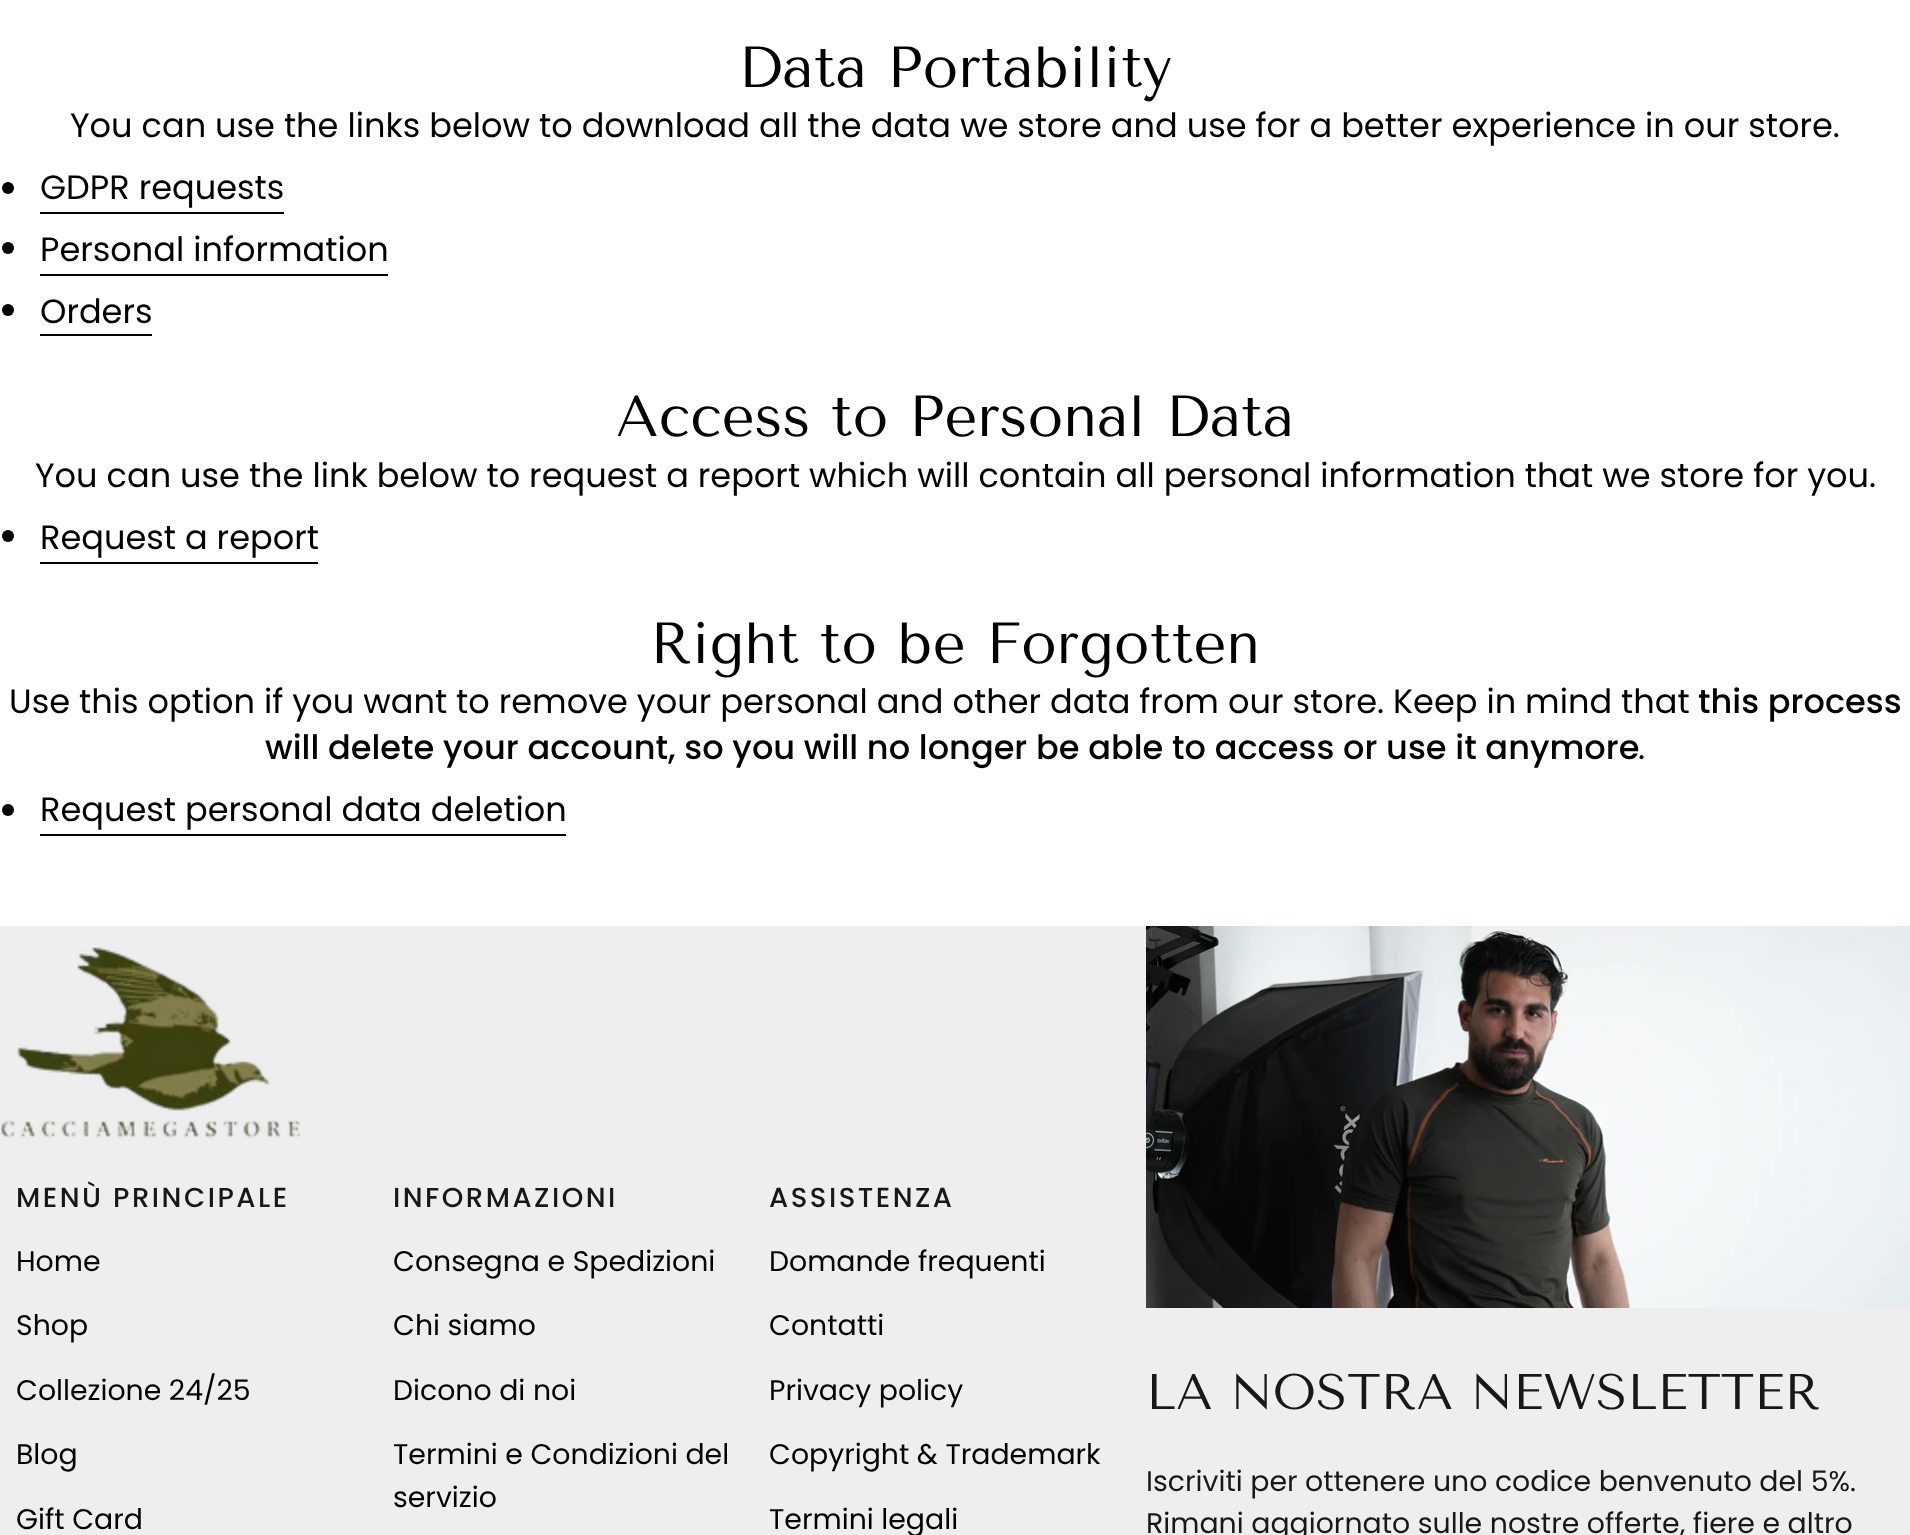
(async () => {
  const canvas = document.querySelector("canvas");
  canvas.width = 1910;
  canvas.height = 1535;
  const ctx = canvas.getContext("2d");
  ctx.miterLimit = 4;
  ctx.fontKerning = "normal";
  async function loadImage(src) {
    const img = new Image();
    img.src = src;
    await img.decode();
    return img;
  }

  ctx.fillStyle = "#ffffff";
  ctx.fillRect(0, 0, 1910, 1535);
  ctx.fillStyle = "#000000";
  ctx.beginPath();
  ctx.arc(8, 188, 6, 0, Math.PI * 2);
  ctx.fill();
  ctx.fillRect(40, 212, 244, 2);
  ctx.beginPath();
  ctx.arc(8, 248, 6, 0, Math.PI * 2);
  ctx.fill();
  ctx.fillRect(40, 274, 348, 2);
  ctx.beginPath();
  ctx.arc(8, 310, 6, 0, Math.PI * 2);
  ctx.fill();
  ctx.fillRect(40, 334, 112, 2);
  ctx.beginPath();
  ctx.arc(8, 536, 6, 0, Math.PI * 2);
  ctx.fill();
  ctx.fillRect(40, 562, 278, 2);
  ctx.beginPath();
  ctx.arc(8, 810, 6, 0, Math.PI * 2);
  ctx.fill();
  ctx.fillRect(40, 834, 526, 2);
  ctx.fillStyle = "#eeeeee";
  ctx.fillRect(0, 926, 1910, 609);
  ctx.drawImage(await loadImage("img/1.png"), 0, 947, 300, 192);
  ctx.drawImage(await loadImage("img/2.png"), 1146, 926, 764, 382);
  ctx.font = "58px Tenor Sans";
  ctx.fillStyle = "#000000";
  ctx.fillText("Data Portability", 738, 87);
  ctx.font = "33.6px Poppins";
  for (const [text, x, y] of [
    ["You can use the links below to download all the data we store and use for a better experience in our store.", 70, 137],
    ["GDPR requests", 40, 199],
    ["Personal information", 40, 261],
    ["Orders", 40, 323],
  ]) {
    ctx.fillText(text, x, y);
  }
  ctx.font = "58px Tenor Sans";
  ctx.fillText("Access to Personal Data", 616, 436);
  ctx.font = "33.6px Poppins";
  ctx.fillText("You can use the link below to request a report which will contain all personal information that we store for you.", 35, 487);
  ctx.fillText("Request a report", 40, 549);
  ctx.font = "58px Tenor Sans";
  ctx.fillText("Right to be Forgotten", 650, 663);
  ctx.font = "33.6px Poppins";
  ctx.fillText("Use this option if you want to remove your personal and other data from our store. Keep in mind that", 9, 713);
  ctx.font = "500 33.6px Poppins";
  ctx.fillText("this process", 1698, 713);
  ctx.fillText("will delete your account, so you will no longer be able to access or use it anymore", 265, 759);
  ctx.font = "33.6px Poppins";
  ctx.fillText(".", 1638, 759);
  ctx.fillText("Request personal data deletion", 40, 821);
  ctx.letterSpacing = "2.5px";
  ctx.font = "500 27.5px Poppins";
  ctx.fillStyle = "#181818";
  ctx.fillText("MENÙ PRINCIPALE", 16, 1207);
  ctx.letterSpacing = "0px";
  ctx.font = "28.35px Poppins";
  ctx.fillStyle = "#000000";
  for (const [text, x, y] of [
    ["Home", 16, 1271],
    ["Shop", 16, 1335],
    ["Collezione 24/25", 16, 1400],
    ["Blog", 16, 1464],
    ["Gift Card", 16, 1529],
  ]) {
    ctx.fillText(text, x, y);
  }
  ctx.letterSpacing = "2.5px";
  ctx.font = "500 27.5px Poppins";
  ctx.fillStyle = "#181818";
  ctx.fillText("INFORMAZIONI", 393, 1207);
  ctx.letterSpacing = "0px";
  ctx.font = "28.35px Poppins";
  ctx.fillStyle = "#000000";
  for (const [text, x, y] of [
    ["Consegna e Spedizioni", 393, 1271],
    ["Chi siamo", 393, 1335],
    ["Dicono di noi", 393, 1400],
    ["Termini e Condizioni del", 393, 1464],
    ["servizio", 393, 1507],
  ]) {
    ctx.fillText(text, x, y);
  }
  ctx.letterSpacing = "2.5px";
  ctx.font = "500 27.5px Poppins";
  ctx.fillStyle = "#181818";
  ctx.fillText("ASSISTENZA", 769, 1207);
  ctx.letterSpacing = "0px";
  ctx.font = "28.35px Poppins";
  ctx.fillStyle = "#000000";
  for (const [text, x, y] of [
    ["Domande frequenti", 769, 1271],
    ["Contatti", 769, 1335],
    ["Privacy policy", 769, 1400],
    ["Copyright & Trademark", 769, 1464],
    ["Termini legali", 769, 1529],
  ]) {
    ctx.fillText(text, x, y);
  }
  ctx.font = "50px Tenor Sans";
  ctx.fillStyle = "#181818";
  ctx.fillText("LA NOSTRA NEWSLETTER", 1146, 1409);
  ctx.font = "28.35px Poppins";
  ctx.fillText("Iscriviti per ottenere uno codice benvenuto del 5%.", 1146, 1491);
  ctx.fillText("Rimani aggiornato sulle nostre offerte, fiere e altro", 1146, 1533);
})();
